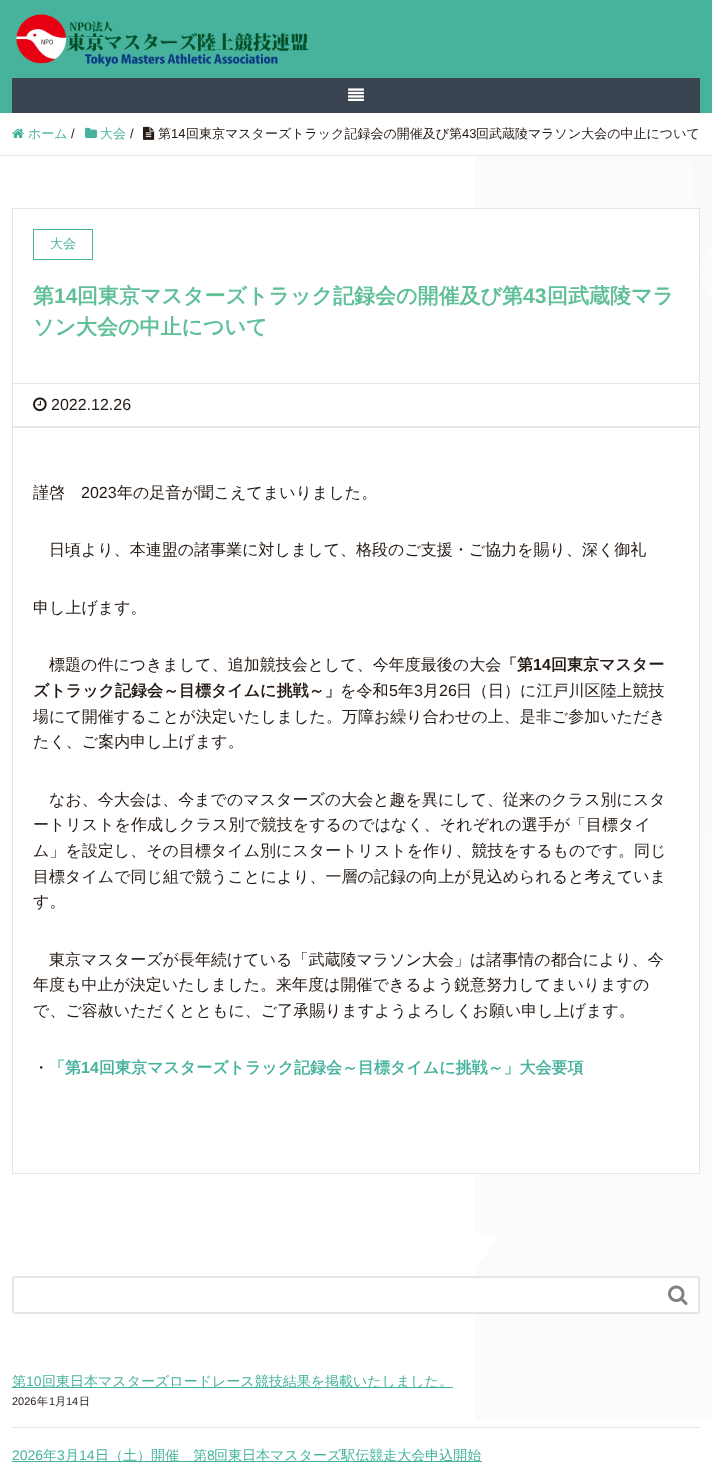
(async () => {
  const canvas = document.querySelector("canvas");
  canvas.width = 712;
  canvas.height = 1470;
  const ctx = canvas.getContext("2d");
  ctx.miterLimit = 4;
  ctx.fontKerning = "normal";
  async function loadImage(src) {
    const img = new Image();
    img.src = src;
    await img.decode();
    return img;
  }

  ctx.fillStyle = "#ffffff";
  ctx.fillRect(0, 0, 712, 1470);
  ctx.drawImage(await loadImage("img/1.png"), 475, 156, 237, 1264);
  ctx.fillStyle = "#47b39d";
  ctx.fillRect(0, 0, 712, 113);
  ctx.drawImage(await loadImage("img/2.png"), 16, 14, 293, 53);
  ctx.fillStyle = "#3b4552";
  ctx.fillRect(12, 78, 688, 35);
  ctx.drawImage(await loadImage("img/3.png"), 348, 88, 16, 13);
  ctx.fillStyle = "#e5e5e5";
  ctx.fillRect(0, 155, 712, 1);
  ctx.drawImage(await loadImage("img/4.png"), 12, 128, 12, 10);
  ctx.drawImage(await loadImage("img/5.png"), 85, 127, 13, 11);
  ctx.drawImage(await loadImage("img/6.png"), 143, 126, 12, 14);
  ctx.fillStyle = "#ffffff";
  ctx.fillRect(475, 209, 224, 964);
  ctx.strokeStyle = "#e5e5e5";
  ctx.strokeRect(12.5, 208.5, 687, 965);
  ctx.fillStyle = "#e5e5e5";
  ctx.fillRect(13, 383, 686, 1);
  ctx.strokeStyle = "#47b39d";
  ctx.strokeRect(33.5, 229.5, 59, 30);
  ctx.fillRect(13, 426, 686, 2);
  ctx.drawImage(await loadImage("img/7.png"), 33, 397, 14, 15);
  ctx.fillStyle = "#ffffff";
  ctx.beginPath();
  ctx.roundRect(12.5, 1276.5, 687, 37, 1.5);
  ctx.fill();
  ctx.strokeStyle = "#e5e5e5";
  ctx.stroke();
  ctx.beginPath();
  ctx.roundRect(13.5, 1277.5, 685, 35, 1.5);
  ctx.stroke();
  ctx.drawImage(await loadImage("img/8.png"), 668, 1285, 20, 20);
  for (const [x, y, w, h, color] of [
    [12, 1427, 688, 1, "#e5e5e5"],
    [12, 1387, 441, 1, "#47b39d"],
    [12, 1461, 470, 1, "#47b39d"],
  ]) {
    ctx.fillStyle = color;
    ctx.fillRect(x, y, w, h);
  }
  ctx.font = "500 13px WenQuanYi Zen Hei";
  ctx.fillText("ホーム", 28, 138);
  ctx.font = "13px Liberation Sans";
  ctx.fillStyle = "#241913";
  ctx.fillText("/", 71, 138);
  ctx.font = "500 13px WenQuanYi Zen Hei";
  ctx.fillStyle = "#47b39d";
  ctx.fillText("大会", 100, 138);
  ctx.font = "13px Liberation Sans";
  ctx.fillStyle = "#241913";
  ctx.fillText("/", 130, 138);
  ctx.font = "500 13px WenQuanYi Zen Hei";
  ctx.fillText("第", 158, 138);
  ctx.font = "13px Liberation Sans";
  ctx.fillText("14", 171, 138);
  ctx.font = "500 13px WenQuanYi Zen Hei";
  ctx.fillText("回東京マスターズトラック記録会の開催及び第", 186, 138);
  ctx.font = "13px Liberation Sans";
  ctx.fillText("43", 462, 138);
  ctx.font = "500 13px WenQuanYi Zen Hei";
  ctx.fillText("回武蔵陵マラソン大会の中止について", 476, 138);
  ctx.fillStyle = "#47b39d";
  ctx.fillText("大会", 50, 248);
  ctx.font = "bold 21px WenQuanYi Zen Hei";
  ctx.fillStyle = "#5ebf98";
  ctx.fillText("第", 33, 303);
  ctx.font = "bold 21px Liberation Sans";
  ctx.fillText("14", 54, 303);
  ctx.font = "bold 21px WenQuanYi Zen Hei";
  ctx.fillText("回東京マスターズトラック記録会の開催及び第", 77, 303);
  ctx.font = "bold 21px Liberation Sans";
  ctx.fillText("43", 523, 303);
  ctx.font = "bold 21px WenQuanYi Zen Hei";
  ctx.fillText("回武蔵陵マラ", 547, 303);
  ctx.fillText("ソン大会の中止について", 33, 334);
  ctx.font = "16px Liberation Sans";
  ctx.fillStyle = "#241913";
  ctx.fillText("2022.12.26", 51, 410);
  ctx.font = "500 16px WenQuanYi Zen Hei";
  ctx.fillText("謹啓", 33, 498);
  ctx.font = "16px Liberation Sans";
  ctx.fillText("2023", 81, 498);
  ctx.font = "500 16px WenQuanYi Zen Hei";
  for (const [text, x, y] of [
    ["年の足音が聞こえてまいりました。", 117, 498],
    ["日頃より、本連盟の諸事業に対しまして、格段のご支援・ご協力を賜り、深く御礼", 49, 555],
    ["申し上げます。", 33, 613],
    ["標題の件につきまして、追加競技会として、今年度最後の大会", 49, 670],
  ]) {
    ctx.fillText(text, x, y);
  }
  ctx.font = "bold 16px WenQuanYi Zen Hei";
  ctx.fillText("「第", 501, 670);
  ctx.font = "bold 16px Liberation Sans";
  ctx.fillText("14", 533, 670);
  ctx.font = "bold 16px WenQuanYi Zen Hei";
  ctx.fillText("回東京マスター", 551, 670);
  ctx.fillText("ズトラック記録会～目標タイムに挑戦～」", 33, 696);
  ctx.font = "500 16px WenQuanYi Zen Hei";
  ctx.fillText("を令和", 340, 696);
  ctx.font = "16px Liberation Sans";
  ctx.fillText("5", 389, 696);
  ctx.font = "500 16px WenQuanYi Zen Hei";
  ctx.fillText("年", 398, 696);
  ctx.font = "16px Liberation Sans";
  ctx.fillText("3", 414, 696);
  ctx.font = "500 16px WenQuanYi Zen Hei";
  ctx.fillText("月", 423, 696);
  ctx.font = "16px Liberation Sans";
  ctx.fillText("26", 439, 696);
  ctx.font = "500 16px WenQuanYi Zen Hei";
  for (const [text, x, y] of [
    ["日（日）に江戸川区陸上競技", 456, 696],
    ["場にて開催することが決定いたしました。万障お繰り合わせの上、是非ご参加いただき", 33, 722],
    ["たく、ご案内申し上げます。", 33, 747],
    ["なお、今大会は、今までのマスターズの大会と趣を異にして、従来のクラス別にスタ", 49, 805],
    ["ートリストを作成しクラス別で競技をするのではなく、それぞれの選手が「目標タイ", 33, 830],
    ["ム」を設定し、その目標タイム別にスタートリストを作り、競技をするものです。同じ", 33, 856],
    ["目標タイムで同じ組で競うことにより、一層の記録の向上が見込められると考えていま", 33, 882],
    ["す。", 33, 907],
    ["東京マスターズが長年続けている「武蔵陵マラソン大会」は諸事情の都合により、今", 49, 965],
    ["年度も中止が決定いたしました。来年度は開催できるよう鋭意努力してまいりますの", 33, 990],
    ["で、ご容赦いただくとともに、ご了承賜りますようよろしくお願い申し上げます。", 33, 1016],
    ["・", 33, 1073],
  ]) {
    ctx.fillText(text, x, y);
  }
  ctx.font = "bold 16px WenQuanYi Zen Hei";
  ctx.fillStyle = "#47b39d";
  ctx.fillText("「第", 49, 1073);
  ctx.font = "bold 16px Liberation Sans";
  ctx.fillText("14", 81, 1073);
  ctx.font = "bold 16px WenQuanYi Zen Hei";
  ctx.fillText("回東京マスターズトラック記録会～目標タイムに挑戦～」大会要項", 99, 1073);
  ctx.font = "500 14px WenQuanYi Zen Hei";
  ctx.fillText("第", 12, 1386);
  ctx.font = "14px Liberation Sans";
  ctx.fillText("10", 26, 1386);
  ctx.font = "500 14px WenQuanYi Zen Hei";
  ctx.fillText("回東日本マスターズロードレース競技結果を掲載いたしました。", 42, 1386);
  ctx.font = "11px Liberation Sans";
  ctx.fillStyle = "#241913";
  ctx.fillText("2026", 12, 1405);
  ctx.font = "500 11px WenQuanYi Zen Hei";
  ctx.fillText("年", 37, 1405);
  ctx.font = "11px Liberation Sans";
  ctx.fillText("1", 49, 1405);
  ctx.font = "500 11px WenQuanYi Zen Hei";
  ctx.fillText("月", 55, 1405);
  ctx.font = "11px Liberation Sans";
  ctx.fillText("14", 66, 1405);
  ctx.font = "500 11px WenQuanYi Zen Hei";
  ctx.fillText("日", 79, 1405);
  ctx.font = "14px Liberation Sans";
  ctx.fillStyle = "#47b39d";
  ctx.fillText("2026", 12, 1460);
  ctx.font = "500 14px WenQuanYi Zen Hei";
  ctx.fillText("年", 43, 1460);
  ctx.font = "14px Liberation Sans";
  ctx.fillText("3", 57, 1460);
  ctx.font = "500 14px WenQuanYi Zen Hei";
  ctx.fillText("月", 65, 1460);
  ctx.font = "14px Liberation Sans";
  ctx.fillText("14", 79, 1460);
  ctx.font = "500 14px WenQuanYi Zen Hei";
  ctx.fillText("日（土）開催　第", 95, 1460);
  ctx.font = "14px Liberation Sans";
  ctx.fillText("8", 207, 1460);
  ctx.font = "500 14px WenQuanYi Zen Hei";
  ctx.fillText("回東日本マスターズ駅伝競走大会申込開始", 214, 1460);
})();
